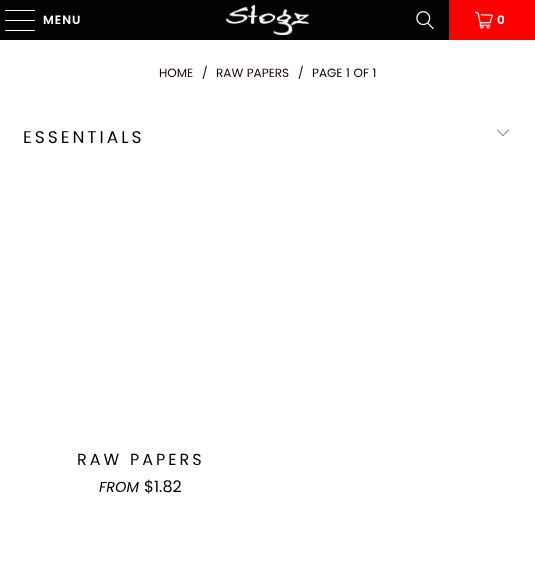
(async () => {
  const canvas = document.querySelector("canvas");
  canvas.width = 535;
  canvas.height = 585;
  const ctx = canvas.getContext("2d");
  ctx.miterLimit = 4;
  ctx.fontKerning = "normal";
  async function loadImage(src) {
    const img = new Image();
    img.src = src;
    await img.decode();
    return img;
  }

  ctx.fillStyle = "#ffffff";
  ctx.fillRect(0, 0, 535, 585);
  ctx.fillStyle = "#030303";
  ctx.fillRect(0, 0, 449, 40);
  ctx.fillStyle = "#ffffff";
  ctx.beginPath();
  ctx.roundRect(5, 10, 30, 1, 0.5);
  ctx.fill();
  ctx.beginPath();
  ctx.roundRect(5, 20, 30, 1, 0.5);
  ctx.fill();
  ctx.beginPath();
  ctx.roundRect(5, 30, 30, 1, 0.5);
  ctx.fill();
  ctx.drawImage(await loadImage("img/1.png"), 225, 5, 85, 30);
  ctx.drawImage(await loadImage("img/2.png"), 416, 11, 18, 19);
  ctx.fillStyle = "#ff0000";
  ctx.fillRect(449, 0, 86, 40);
  ctx.drawImage(await loadImage("img/3.png"), 475, 11, 18, 18);
  ctx.drawImage(await loadImage("img/4.png"), 497, 129, 12, 7);
  ctx.letterSpacing = "1px";
  ctx.font = "600 12px Poppins";
  ctx.fillStyle = "#ffffff";
  ctx.fillText("MENU", 43, 24);
  ctx.fillText("0", 497, 24);
  ctx.letterSpacing = "0px";
  ctx.font = "12px Poppins";
  ctx.fillStyle = "#180000";
  for (const [text, x, y] of [
    ["HOME", 159, 77],
    ["/", 202, 77],
    ["RAW PAPERS", 216, 77],
    ["/", 298, 77],
  ]) {
    ctx.fillText(text, x, y);
  }
  ctx.fillStyle = "#000000";
  ctx.fillText("PAGE 1 OF 1", 312, 77);
  ctx.letterSpacing = "3px";
  ctx.font = "17px Poppins";
  ctx.fillText("ESSENTIALS", 23, 143);
  ctx.font = "16px Poppins";
  ctx.fillText("RAW PAPERS", 77, 465);
  ctx.letterSpacing = "0px";
  ctx.font = "italic 14.5px Poppins";
  ctx.fillText("FROM", 99, 492);
  ctx.font = "16px Poppins";
  ctx.fillText("$1.82", 144, 492);
})();
